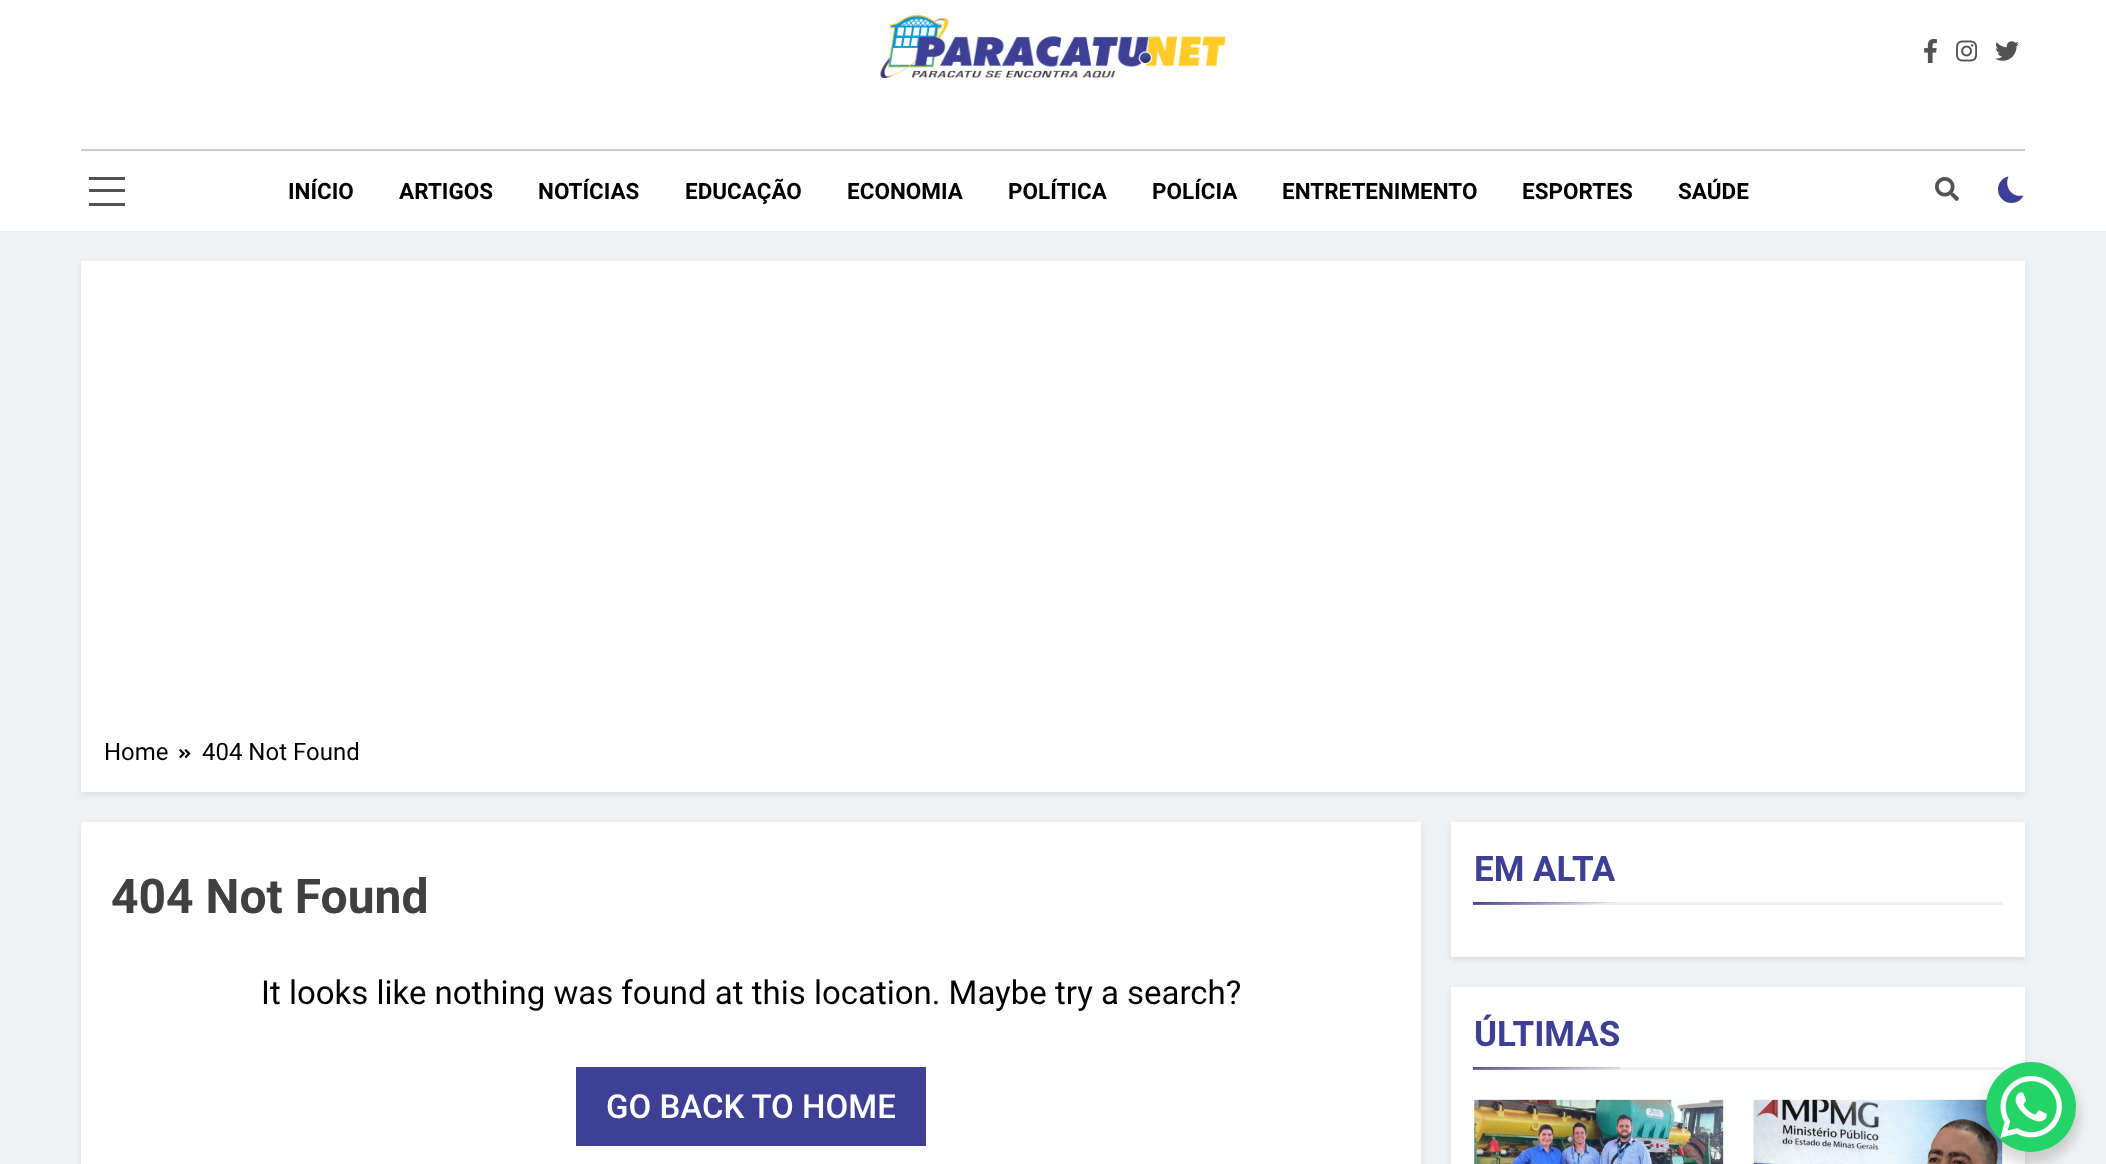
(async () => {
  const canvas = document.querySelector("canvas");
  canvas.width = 2106;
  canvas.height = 1164;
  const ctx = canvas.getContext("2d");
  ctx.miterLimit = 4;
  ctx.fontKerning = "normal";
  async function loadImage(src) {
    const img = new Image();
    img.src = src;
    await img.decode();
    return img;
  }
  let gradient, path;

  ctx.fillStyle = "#f0f1f2";
  ctx.fillRect(0, 0, 2106, 1164);
  ctx.fillStyle = "#ffffff";
  ctx.fillRect(0, 0, 2106, 231);
  ctx.drawImage(await loadImage("img/1.png"), 880, 15, 346, 63);
  ctx.drawImage(await loadImage("img/2.png"), 1924, 39, 13, 24);
  ctx.drawImage(await loadImage("img/3.png"), 1956, 40, 22, 22);
  ctx.drawImage(await loadImage("img/4.png"), 1995, 41, 24, 20);
  for (const [x, y, w, h, color] of [
    [81, 149, 1944, 2, "#cccccc"],
    [89, 177, 36, 3, "#525252"],
    [89, 189, 36, 3, "#525252"],
    [89, 203, 36, 3, "#525252"],
  ]) {
    ctx.fillStyle = color;
    ctx.fillRect(x, y, w, h);
  }
  ctx.drawImage(await loadImage("img/5.png"), 1935, 177, 24, 24);
  ctx.fillStyle = "#3e4095";
  path = new Path2D("M2023.5 195.5C2012 198 2004 187 2008.5 176.5C2002.5 177.5 1998 183 1998 189.5C1998 197 2004 203 2011.5 203C2017 203 2021.5 200 2023.5 195.5Z");
  ctx.fill(path);
  ctx.fillStyle = "rgba(0, 0, 0, 0.08)";
  ctx.filter = "blur(3px)";
  ctx.beginPath();
  ctx.rect(81, 264, 1944, 531);
  ctx.fill();
  ctx.filter = "none";
  ctx.fillStyle = "#ffffff";
  ctx.fillRect(81, 261, 1944, 531);
  ctx.drawImage(await loadImage("img/6.png"), 179, 749, 12, 10);
  ctx.fillStyle = "rgba(0, 0, 0, 0.08)";
  ctx.filter = "blur(3px)";
  ctx.beginPath();
  ctx.rect(81, 825, 1340, 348);
  ctx.fill();
  ctx.filter = "none";
  ctx.fillStyle = "#ffffff";
  ctx.fillRect(81, 822, 1340, 342);
  ctx.fillStyle = "#3e4095";
  ctx.fillRect(576, 1067, 350, 79);
  ctx.fillStyle = "rgba(0, 0, 0, 0.08)";
  ctx.filter = "blur(3px)";
  ctx.beginPath();
  ctx.rect(1451, 825, 574, 135);
  ctx.fill();
  ctx.filter = "none";
  ctx.fillStyle = "#ffffff";
  ctx.fillRect(1451, 822, 574, 135);
  ctx.fillStyle = "#f0f0f0";
  ctx.fillRect(1616, 902, 387, 3);
  gradient = ctx.createLinearGradient(1544, 897, 1545, 909);
  gradient.addColorStop(0, "#3e4095");
  gradient.addColorStop(1, "#f0f0f0");
  ctx.fillStyle = gradient;
  ctx.fillRect(1473, 902, 143, 3);
  ctx.fillStyle = "rgba(0, 0, 0, 0.08)";
  ctx.filter = "blur(3px)";
  ctx.beginPath();
  ctx.rect(1451, 990, 574, 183);
  ctx.fill();
  ctx.filter = "none";
  ctx.fillStyle = "#ffffff";
  ctx.fillRect(1451, 987, 574, 177);
  ctx.fillStyle = "#f0f0f0";
  ctx.fillRect(1620, 1067, 383, 3);
  gradient = ctx.createLinearGradient(1546, 1061, 1547, 1075);
  gradient.addColorStop(0, "#3e4095");
  gradient.addColorStop(1, "#f0f0f0");
  ctx.fillStyle = gradient;
  ctx.fillRect(1473, 1067, 147, 3);
  ctx.drawImage(await loadImage("img/7.png"), 1474, 1099, 250, 65);
  ctx.drawImage(await loadImage("img/8.png"), 1753, 1099, 250, 65);
  ctx.fillStyle = "rgba(0, 0, 0, 0.15)";
  ctx.filter = "blur(6px)";
  ctx.beginPath();
  ctx.roundRect(1983, 1068, 96, 96, 48);
  ctx.fill();
  ctx.filter = "none";
  ctx.fillStyle = "#25d366";
  ctx.beginPath();
  ctx.arc(2031, 1107, 45, 0, Math.PI * 2);
  ctx.fill();
  ctx.drawImage(await loadImage("img/9.png"), 2000, 1076, 62, 62);
  ctx.font = "bold 22.5px Roboto";
  ctx.fillStyle = "#000000";
  for (const [text, x, y] of [
    ["INÍCIO", 288, 199],
    ["ARTIGOS", 399, 199],
    ["NOTÍCIAS", 538, 199],
    ["EDUCAÇÃO", 685, 199],
    ["ECONOMIA", 847, 199],
    ["POLÍTICA", 1008, 199],
    ["POLÍCIA", 1152, 199],
    ["ENTRETENIMENTO", 1282, 199],
    ["ESPORTES", 1522, 199],
    ["SAÚDE", 1678, 199],
  ]) {
    ctx.fillText(text, x, y);
  }
  ctx.font = "24px Roboto";
  ctx.fillText("Home", 104, 760);
  ctx.fillText("404 Not Found", 202, 760);
  ctx.font = "bold 48px Roboto";
  ctx.fillStyle = "#404040";
  ctx.fillText("404 Not Found", 111, 913);
  ctx.font = "33px Roboto";
  ctx.fillStyle = "#000000";
  ctx.fillText("It looks like nothing was found at this location. Maybe try a search?", 261, 1004);
  ctx.font = "500 33px Roboto";
  ctx.fillStyle = "#ffffff";
  ctx.fillText("GO BACK TO HOME", 606, 1118);
  ctx.font = "bold 35px Roboto";
  ctx.fillStyle = "#3e4095";
  ctx.fillText("EM ALTA", 1474, 881);
  ctx.fillText("ÚLTIMAS", 1474, 1046);
})();
